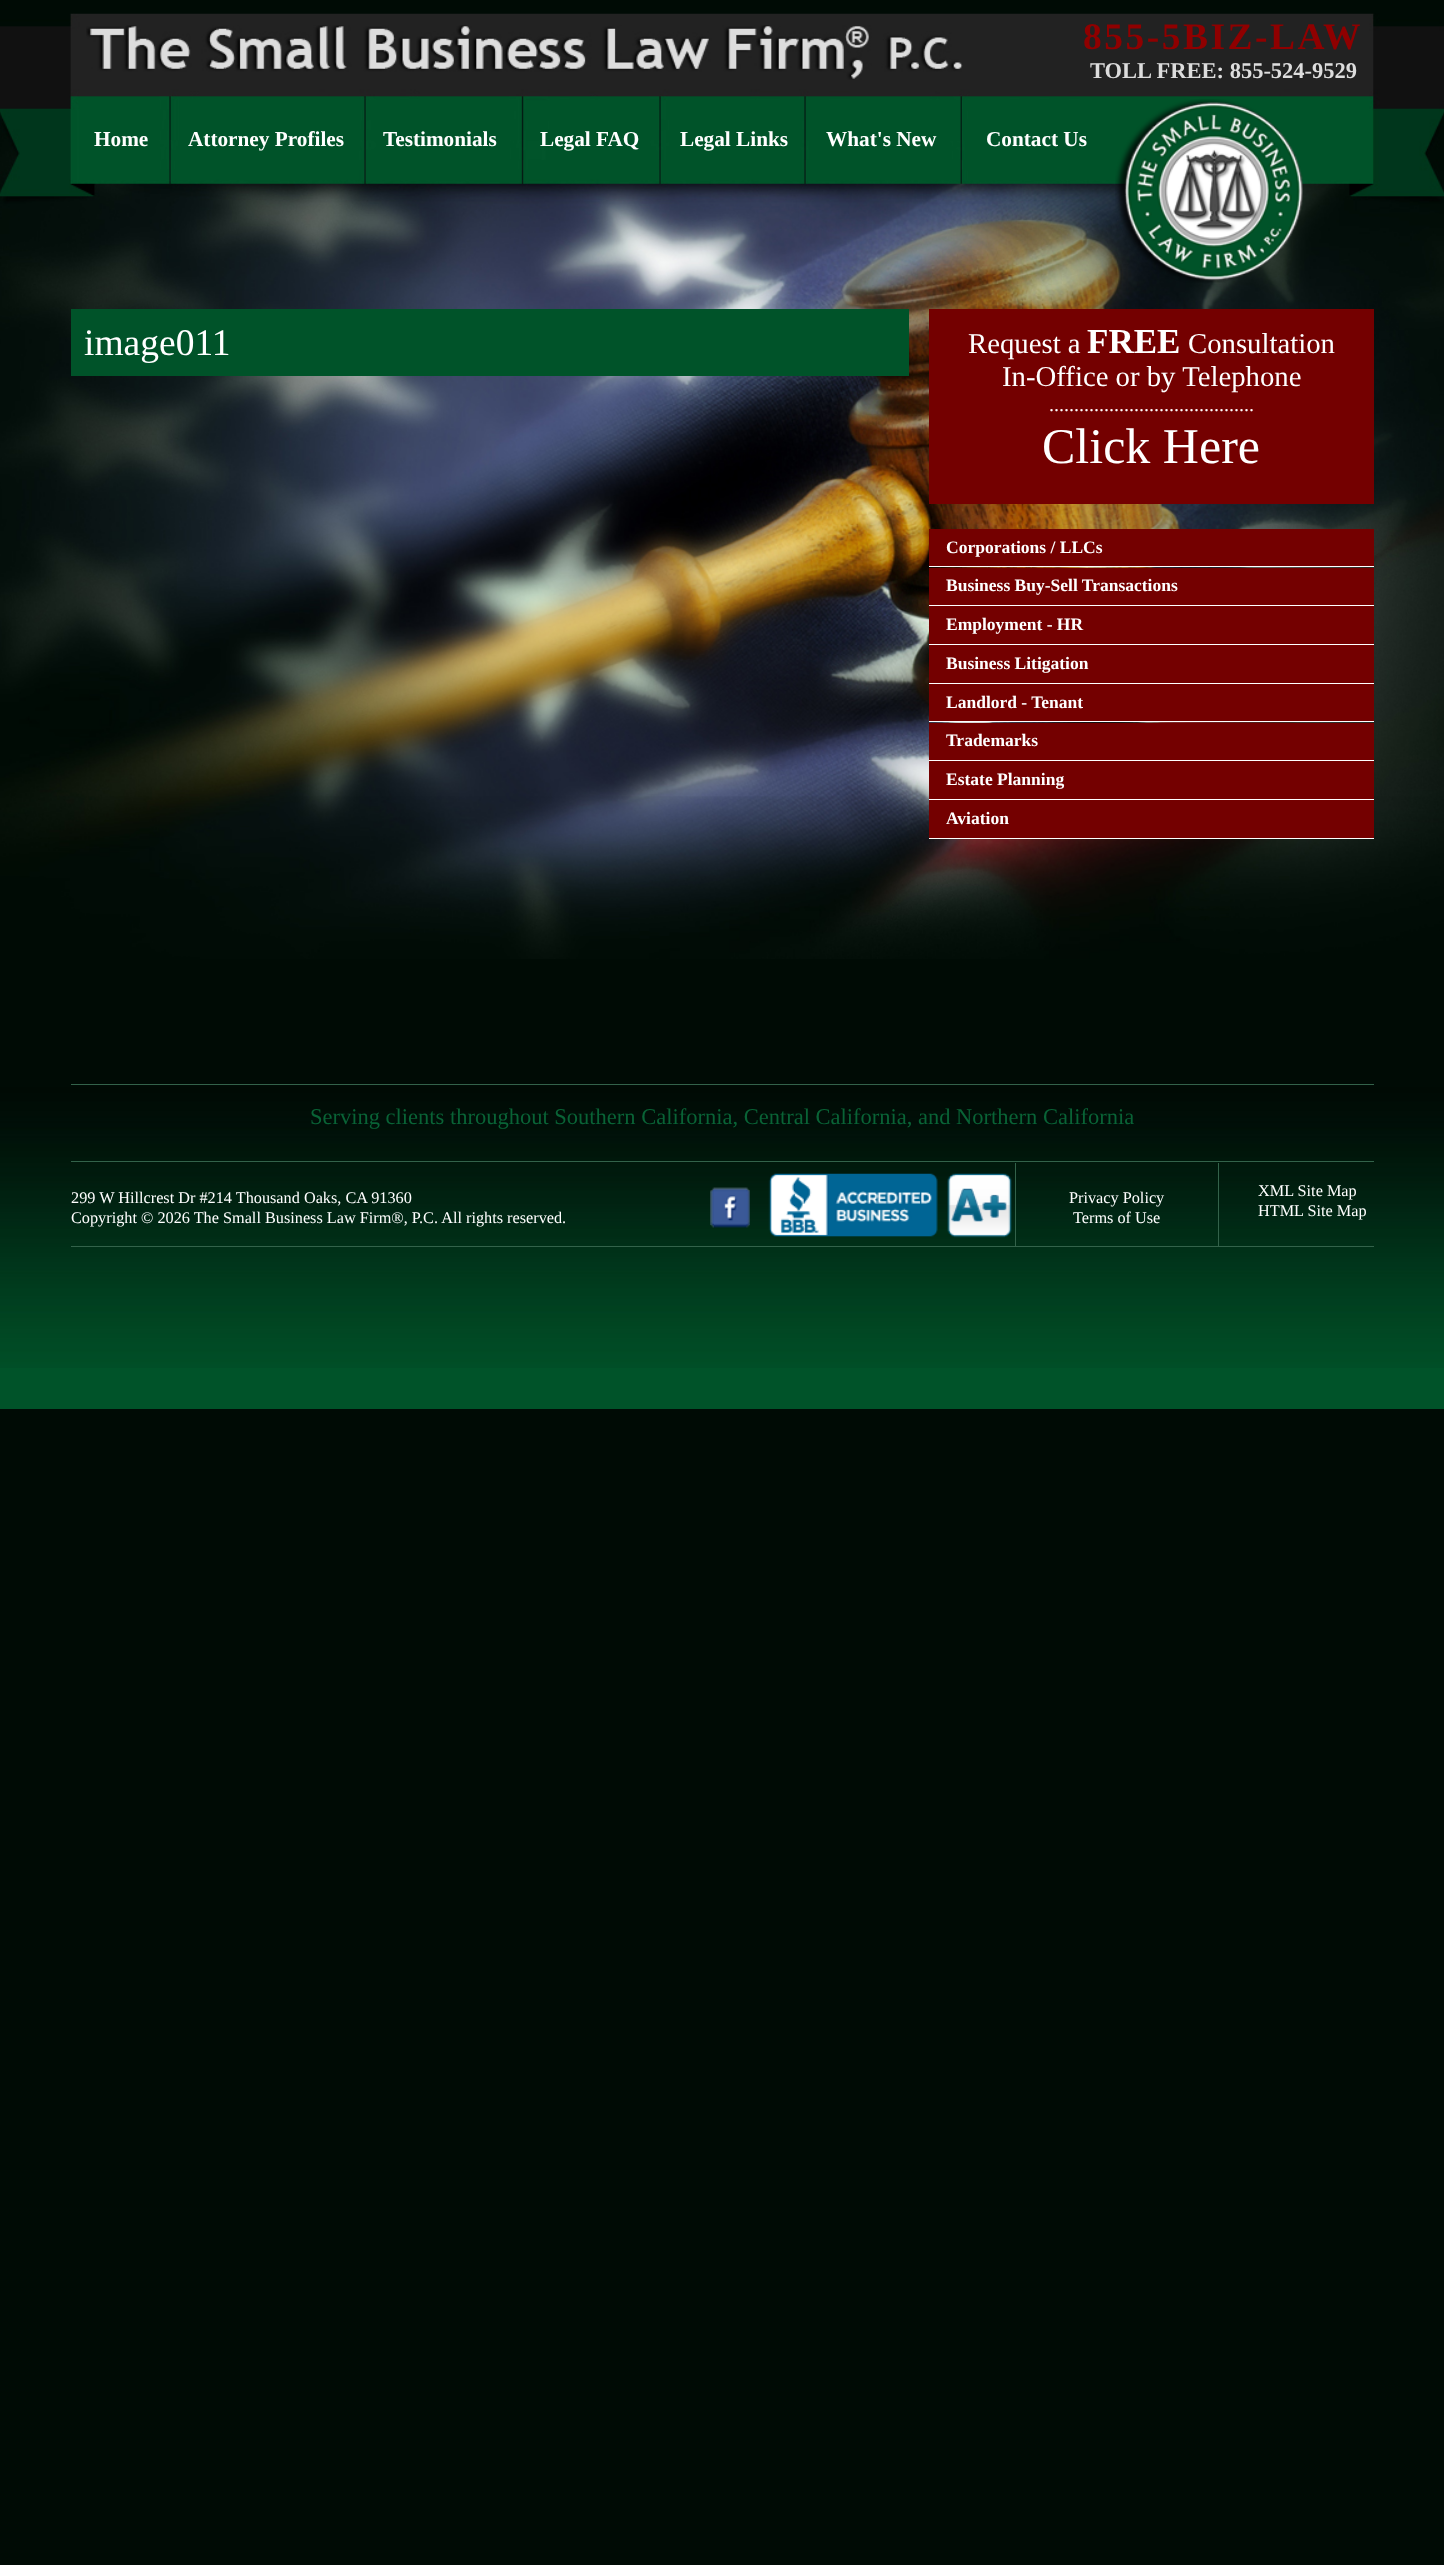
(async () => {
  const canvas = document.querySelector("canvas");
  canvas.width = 1444;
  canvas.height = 2565;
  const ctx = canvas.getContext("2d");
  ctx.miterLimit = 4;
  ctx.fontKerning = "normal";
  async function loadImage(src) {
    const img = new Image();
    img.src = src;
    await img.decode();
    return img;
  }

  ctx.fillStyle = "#000b05";
  ctx.fillRect(0, 0, 1444, 2565);
  ctx.drawImage(await loadImage("img/1.png"), 0, 13, 1444, 946);
  ctx.drawImage(await loadImage("img/2.png"), 86, 25, 877, 55);
  ctx.drawImage(await loadImage("img/3.png"), 1115, 99, 188, 184);
  for (const [x, y, w, h, color] of [
    [71, 309, 838, 67, "#005329"],
    [929, 309, 445, 195, "#740000"],
    [929, 566, 445, 1, "#ffffff"],
    [929, 529, 445, 37, "#740000"],
    [929, 605, 445, 1, "#ffffff"],
    [929, 568, 445, 37, "#740000"],
    [929, 644, 445, 1, "#ffffff"],
    [929, 606, 445, 38, "#740000"],
    [929, 683, 445, 1, "#ffffff"],
    [929, 645, 445, 38, "#740000"],
    [929, 721, 445, 1, "#ffffff"],
    [929, 684, 445, 37, "#740000"],
    [929, 760, 445, 1, "#ffffff"],
    [929, 723, 445, 37, "#740000"],
    [929, 799, 445, 1, "#ffffff"],
    [929, 761, 445, 38, "#740000"],
    [929, 838, 445, 1, "#ffffff"],
    [929, 800, 445, 38, "#740000"],
    [0, 1368, 1444, 41, "#005329"],
  ]) {
    ctx.fillStyle = color;
    ctx.fillRect(x, y, w, h);
  }
  ctx.drawImage(await loadImage("img/4.png"), 0, 1084, 1444, 284);
  for (const [x, y, w, h, color] of [
    [71, 1084, 1303, 1, "#33624a"],
    [71, 1161, 1303, 1, "#33624a"],
    [71, 1246, 1303, 1, "#33624a"],
  ]) {
    ctx.fillStyle = color;
    ctx.fillRect(x, y, w, h);
  }
  ctx.drawImage(await loadImage("img/5.png"), 710, 1187, 40, 41);
  ctx.drawImage(await loadImage("img/6.png"), 768, 1173, 244, 65);
  ctx.fillRect(1218, 1163, 1, 83);
  ctx.fillRect(1015, 1163, 1, 83);
  ctx.letterSpacing = "2.5px";
  ctx.font = "bold 37.5px Liberation Serif";
  ctx.fillStyle = "#8f0000";
  ctx.fillText("855-5BIZ-LAW", 1083, 49);
  ctx.letterSpacing = "0px";
  ctx.font = "bold 22.5px Liberation Serif";
  ctx.fillStyle = "#dddddd";
  ctx.fillText("TOLL FREE: 855-524-9529", 1090, 78);
  ctx.font = "bold 21.25px Liberation Serif";
  ctx.fillStyle = "#ffffff";
  for (const [text, x, y] of [
    ["Home", 94, 146],
    ["Attorney Profiles", 188, 146],
    ["Testimonials", 383, 146],
    ["Legal FAQ", 540, 146],
    ["Legal Links", 680, 146],
    ["What's New", 826, 146],
    ["Contact Us", 986, 146],
  ]) {
    ctx.fillText(text, x, y);
  }
  ctx.font = "37.5px Liberation Serif";
  ctx.fillText("image011", 84, 355);
  ctx.font = "28.75px Liberation Serif";
  ctx.fillText("Request a", 968, 353);
  ctx.font = "bold 35px Liberation Serif";
  ctx.fillText("FREE", 1087, 353);
  ctx.font = "28.75px Liberation Serif";
  ctx.fillText("Consultation", 1188, 353);
  ctx.fillText("In-Office or by Telephone", 1002, 386);
  ctx.font = "20px Liberation Serif";
  ctx.fillText(".........................................", 1049, 411);
  ctx.font = "50px Liberation Serif";
  ctx.fillText("Click Here", 1042, 463);
  ctx.font = "bold 17.5px Liberation Serif";
  for (const [text, x, y] of [
    ["Corporations / LLCs", 946, 553],
    ["Business Buy-Sell Transactions", 946, 591],
    ["Employment - HR", 946, 630],
    ["Business Litigation", 946, 669],
    ["Landlord - Tenant", 946, 708],
    ["Trademarks", 946, 746],
    ["Estate Planning", 946, 785],
    ["Aviation", 946, 824],
  ]) {
    ctx.fillText(text, x, y);
  }
  ctx.font = "22.5px Liberation Serif";
  ctx.fillStyle = "#096336";
  ctx.fillText("Serving clients throughout Southern California, Central California, and Northern California", 310, 1124);
  ctx.font = "16.25px Liberation Serif";
  ctx.fillStyle = "#ffffff";
  for (const [text, x, y] of [
    ["299 W Hillcrest Dr #214 Thousand Oaks, CA 91360", 71, 1203],
    ["Copyright © 2026 The Small Business Law Firm®, P.C. All rights reserved.", 71, 1223],
    ["Privacy Policy", 1069, 1203],
    ["Terms of Use", 1073, 1223],
    ["XML Site Map", 1258, 1196],
    ["HTML Site Map", 1258, 1216],
  ]) {
    ctx.fillText(text, x, y);
  }
})();
